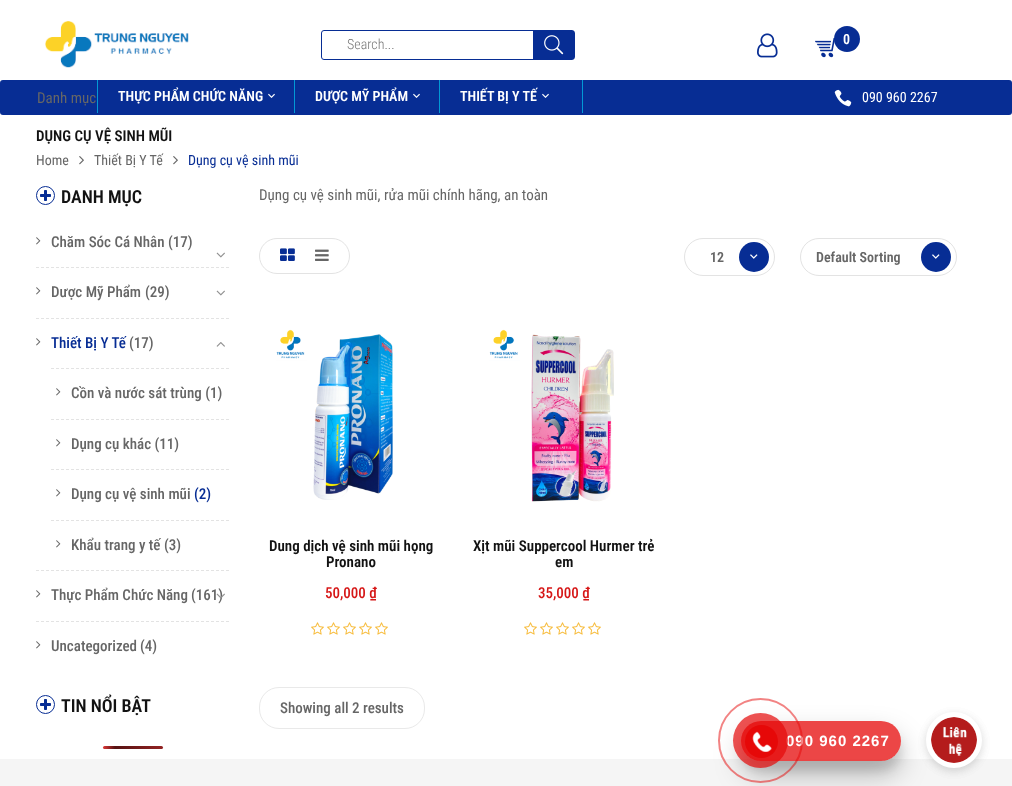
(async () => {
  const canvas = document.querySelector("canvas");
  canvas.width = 1012;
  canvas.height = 786;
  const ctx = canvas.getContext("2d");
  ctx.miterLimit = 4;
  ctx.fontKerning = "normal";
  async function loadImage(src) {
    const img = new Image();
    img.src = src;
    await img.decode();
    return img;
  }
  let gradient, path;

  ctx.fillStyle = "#ffffff";
  ctx.fillRect(0, 0, 1012, 786);
  ctx.drawImage(await loadImage("img/1.png"), 45, 21, 144, 47);
  ctx.beginPath();
  ctx.roundRect(321.5, 30.5, 253, 29, 2.5);
  ctx.strokeStyle = "#072d94";
  ctx.stroke();
  ctx.fillStyle = "#072d94";
  ctx.fillRect(533, 31, 41, 28);
  ctx.drawImage(await loadImage("img/2.png"), 544, 35, 20, 20);
  ctx.drawImage(await loadImage("img/3.png"), 757, 33, 21, 25);
  ctx.drawImage(await loadImage("img/4.png"), 815, 37, 20, 21);
  ctx.beginPath();
  ctx.arc(847, 39, 13, 0, Math.PI * 2);
  ctx.fill();
  ctx.beginPath();
  ctx.roundRect(0, 80, 1012, 35, 3);
  ctx.fill();
  ctx.fillStyle = "#0299d5";
  ctx.fillRect(97, 80, 1, 33);
  ctx.drawImage(await loadImage("img/5.png"), 268, 93, 7, 5);
  ctx.fillRect(294, 80, 1, 33);
  ctx.drawImage(await loadImage("img/5.png"), 413, 93, 7, 5);
  ctx.fillRect(439, 80, 1, 33);
  ctx.drawImage(await loadImage("img/5.png"), 542, 93, 7, 5);
  ctx.fillRect(582, 80, 1, 33);
  ctx.drawImage(await loadImage("img/6.png"), 834, 89, 18, 18);
  ctx.drawImage(await loadImage("img/7.png"), 79, 156, 5, 9);
  ctx.drawImage(await loadImage("img/7.png"), 173, 156, 5, 9);
  ctx.beginPath();
  ctx.arc(45.5, 195.5, 9, 0, Math.PI * 2);
  ctx.stroke();
  ctx.drawImage(await loadImage("img/8.png"), 40, 190, 11, 11);
  ctx.drawImage(await loadImage("img/9.png"), 36, 237, 5, 8);
  ctx.drawImage(await loadImage("img/10.png"), 216, 252, 9, 6);
  path = new Path2D("M36 267.5H229");
  ctx.strokeStyle = "#e3e3e3";
  ctx.setLineDash([3, 2]);
  ctx.stroke(path);
  ctx.drawImage(await loadImage("img/9.png"), 36, 287, 5, 8);
  ctx.drawImage(await loadImage("img/10.png"), 216, 290, 9, 6);
  path = new Path2D("M36 318.5H229");
  ctx.stroke(path);
  ctx.drawImage(await loadImage("img/9.png"), 36, 338, 5, 8);
  ctx.drawImage(await loadImage("img/11.png"), 216, 342, 9, 5);
  path = new Path2D("M51 368.5H229");
  ctx.stroke(path);
  ctx.drawImage(await loadImage("img/9.png"), 56, 388, 5, 8);
  path = new Path2D("M51 419.5H229");
  ctx.stroke(path);
  ctx.drawImage(await loadImage("img/9.png"), 56, 439, 5, 8);
  path = new Path2D("M51 469.5H229");
  ctx.stroke(path);
  ctx.drawImage(await loadImage("img/9.png"), 56, 489, 5, 8);
  path = new Path2D("M51 520.5H229");
  ctx.stroke(path);
  ctx.drawImage(await loadImage("img/9.png"), 56, 540, 5, 8);
  path = new Path2D("M36 570.5H229");
  ctx.stroke(path);
  ctx.drawImage(await loadImage("img/9.png"), 36, 590, 5, 8);
  path = new Path2D("M36 621.5H229");
  ctx.stroke(path);
  ctx.drawImage(await loadImage("img/9.png"), 36, 641, 5, 8);
  ctx.beginPath();
  ctx.arc(45.5, 704.5, 9, 0, Math.PI * 2);
  ctx.strokeStyle = "#072d94";
  ctx.setLineDash([]);
  ctx.stroke();
  ctx.drawImage(await loadImage("img/8.png"), 40, 699, 11, 11);
  gradient = ctx.createLinearGradient(103, 748, 223, 748);
  gradient.addColorStop(0, "#dd3737");
  gradient.addColorStop(0.1, "#571313");
  gradient.addColorStop(1, "#dd3737");
  ctx.fillStyle = gradient;
  ctx.beginPath();
  ctx.roundRect(103, 746, 60, 3, 1.5);
  ctx.fill();
  ctx.beginPath();
  ctx.roundRect(259.5, 238.5, 90, 35, 17.5);
  ctx.strokeStyle = "#e3e3e3";
  ctx.stroke();
  ctx.drawImage(await loadImage("img/13.png"), 280, 248, 15, 13);
  ctx.drawImage(await loadImage("img/14.png"), 315, 249, 14, 12);
  ctx.beginPath();
  ctx.roundRect(684.5, 238.5, 90, 37, 18.5);
  ctx.stroke();
  ctx.fillStyle = "#072d94";
  ctx.beginPath();
  ctx.arc(754, 257, 15, 0, Math.PI * 2);
  ctx.fill();
  ctx.drawImage(await loadImage("img/15.png"), 750, 254, 8, 5);
  ctx.beginPath();
  ctx.roundRect(800.5, 238.5, 156, 37, 18.5);
  ctx.stroke();
  ctx.beginPath();
  ctx.arc(936, 257, 15, 0, Math.PI * 2);
  ctx.fill();
  ctx.drawImage(await loadImage("img/15.png"), 932, 254, 8, 5);
  ctx.drawImage(await loadImage("img/16.png"), 276, 329, 117, 171);
  ctx.drawImage(await loadImage("img/17.png"), 311, 622, 77, 13);
  ctx.drawImage(await loadImage("img/18.png"), 489, 329, 125, 173);
  ctx.drawImage(await loadImage("img/17.png"), 524, 622, 77, 13);
  ctx.beginPath();
  ctx.roundRect(259.5, 687.5, 165, 41, 19.5);
  ctx.strokeStyle = "#e9e9e9";
  ctx.stroke();
  ctx.fillStyle = "#f5f5f5";
  ctx.fillRect(0, 759, 1012, 27);
  ctx.save();
  path = new Path2D("M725 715H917V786H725ZM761 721H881C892 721 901 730 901 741C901 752 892 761 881 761H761C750 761 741 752 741 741C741 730 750 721 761 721Z");
  ctx.clip(path, "evenodd");
  ctx.fillStyle = "rgba(0, 0, 0, 0.1)";
  ctx.filter = "blur(5px)";
  ctx.beginPath();
  ctx.roundRect(741, 731, 160, 40, 20);
  ctx.fill();
  ctx.filter = "none";
  ctx.restore();
  ctx.save();
  path = new Path2D("M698 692H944V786H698ZM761 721H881C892 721 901 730 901 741C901 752 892 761 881 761H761C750 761 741 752 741 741C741 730 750 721 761 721Z");
  ctx.clip(path, "evenodd");
  ctx.fillStyle = "rgba(0, 0, 0, 0.25)";
  ctx.filter = "blur(14px)";
  ctx.beginPath();
  ctx.roundRect(741, 735, 160, 40, 20);
  ctx.fill();
  ctx.filter = "none";
  ctx.restore();
  ctx.fillStyle = "rgba(230, 8, 8, 0.75)";
  ctx.beginPath();
  ctx.roundRect(741, 721, 160, 40, 20);
  ctx.fill();
  ctx.fillStyle = "rgba(0, 0, 0, 0.08)";
  ctx.filter = "blur(5px)";
  ctx.beginPath();
  ctx.roundRect(926, 715, 56, 56, 28);
  ctx.fill();
  ctx.filter = "none";
  ctx.filter = "blur(5px)";
  ctx.beginPath();
  ctx.roundRect(926, 715, 56, 56, 28);
  ctx.fill();
  ctx.filter = "none";
  ctx.fillStyle = "#ffffff";
  ctx.beginPath();
  ctx.arc(954, 740, 25.5, 0, Math.PI * 2);
  ctx.fill();
  ctx.strokeStyle = "#ffffff";
  ctx.lineWidth = 5;
  ctx.stroke();
  ctx.drawImage(await loadImage("img/20.png"), 931, 717, 46, 46);
  ctx.font = "300 14px Roboto Condensed";
  ctx.fillStyle = "#757575";
  ctx.fillText("Search...", 347, 49);
  ctx.font = "600 14px Roboto Condensed";
  ctx.fillStyle = "#ffffff";
  ctx.fillText("0", 843, 44);
  ctx.font = "15px Roboto Condensed";
  ctx.fillStyle = "#666666";
  ctx.fillText("Danh mục", 37, 103);
  ctx.font = "600 14px Roboto Condensed";
  ctx.fillStyle = "#ffffff";
  for (const [text, x, y] of [
    ["THỰC PHẨM CHỨC NĂNG", 118, 101],
    ["DƯỢC MỸ PHẨM", 315, 101],
    ["THIẾT BỊ Y TẾ", 460, 101],
  ]) {
    ctx.fillText(text, x, y);
  }
  ctx.font = "14px Roboto Condensed";
  ctx.fillText("090 960 2267", 862, 102);
  ctx.font = "600 15px Roboto Condensed";
  ctx.fillStyle = "#121212";
  ctx.fillText("DỤNG CỤ VỆ SINH MŨI", 36, 141);
  ctx.font = "14px Roboto Condensed";
  ctx.fillStyle = "#666666";
  ctx.fillText("Home", 36, 165);
  ctx.fillText("Thiết Bị Y Tế", 94, 165);
  ctx.fillStyle = "#072d94";
  ctx.fillText("Dụng cụ vệ sinh mũi", 188, 165);
  ctx.font = "600 18px Roboto Condensed";
  ctx.fillStyle = "#121212";
  ctx.fillText("DANH MỤC", 61, 203);
  ctx.font = "500 15px Roboto Condensed";
  ctx.fillStyle = "#666666";
  for (const [text, x, y] of [
    ["Chăm Sóc Cá Nhân", 51, 247],
    ["(17)", 168, 247],
    ["Dược Mỹ Phẩm", 51, 297],
    ["(29)", 145, 297],
  ]) {
    ctx.fillText(text, x, y);
  }
  ctx.fillStyle = "#072d94";
  ctx.fillText("Thiết Bị Y Tế", 51, 348);
  ctx.fillStyle = "#666666";
  for (const [text, x, y] of [
    ["(17)", 129, 348],
    ["Cồn và nước sát trùng (1)", 71, 398],
    ["Dụng cụ khác (11)", 71, 449],
    ["Dụng cụ vệ sinh mũi", 71, 499],
  ]) {
    ctx.fillText(text, x, y);
  }
  ctx.fillStyle = "#072d94";
  ctx.fillText("(2)", 194, 499);
  ctx.fillStyle = "#666666";
  for (const [text, x, y] of [
    ["Khẩu trang y tế (3)", 71, 550],
    ["Thực Phẩm Chức Năng", 51, 600],
    ["(161)", 191, 600],
  ]) {
    ctx.fillText(text, x, y);
  }
  ctx.drawImage(await loadImage("img/12.png"), 216, 593, 9, 6);
  ctx.fillText("Uncategorized", 51, 651);
  ctx.fillText("(4)", 140, 651);
  ctx.font = "600 18px Roboto Condensed";
  ctx.fillStyle = "#121212";
  ctx.fillText("TIN NỔI BẬT", 61, 712);
  ctx.font = "15px Roboto Condensed";
  ctx.fillStyle = "#666666";
  ctx.fillText("Dụng cụ vệ sinh mũi, rửa mũi chính hãng, an toàn", 259, 200);
  ctx.font = "600 14px Roboto Condensed";
  ctx.fillText("12", 710, 262);
  ctx.fillText("Default Sorting", 816, 262);
  ctx.font = "600 15px Roboto Condensed";
  ctx.fillStyle = "#121212";
  ctx.fillText("Dung dịch vệ sinh mũi họng", 269, 551);
  ctx.fillText("Pronano", 326, 567);
  ctx.font = "500 15px Roboto Condensed";
  ctx.fillStyle = "#d61616";
  ctx.fillText("50,000 ₫", 325, 598);
  ctx.font = "600 15px Roboto Condensed";
  ctx.fillStyle = "#121212";
  ctx.fillText("Xịt mũi Suppercool Hurmer trẻ", 473, 551);
  ctx.fillText("em", 555, 567);
  ctx.font = "500 15px Roboto Condensed";
  ctx.fillStyle = "#d61616";
  ctx.fillText("35,000 ₫", 538, 598);
  ctx.fillStyle = "#666666";
  ctx.fillText("Showing all 2 results", 280, 713);
  ctx.letterSpacing = "1px";
  ctx.font = "bold 15px Liberation Sans";
  ctx.fillStyle = "#ffffff";
  ctx.fillText("090 960 2267", 786, 746);
  ctx.beginPath();
  ctx.arc(760.5, 740.5, 41.5, 0, Math.PI * 2);
  ctx.strokeStyle = "rgba(230, 8, 8, 0.5)";
  ctx.lineWidth = 2;
  ctx.stroke();
  ctx.fillStyle = "rgba(230, 8, 8, 0.7)";
  ctx.beginPath();
  ctx.arc(760.5, 740.5, 27.5, 0, Math.PI * 2);
  ctx.fill();
  ctx.fillStyle = "#e60808";
  ctx.beginPath();
  ctx.arc(761.5, 741.5, 16.5, 0, Math.PI * 2);
  ctx.fill();
  ctx.drawImage(await loadImage("img/19.png"), 752, 731, 20, 21);
})();
